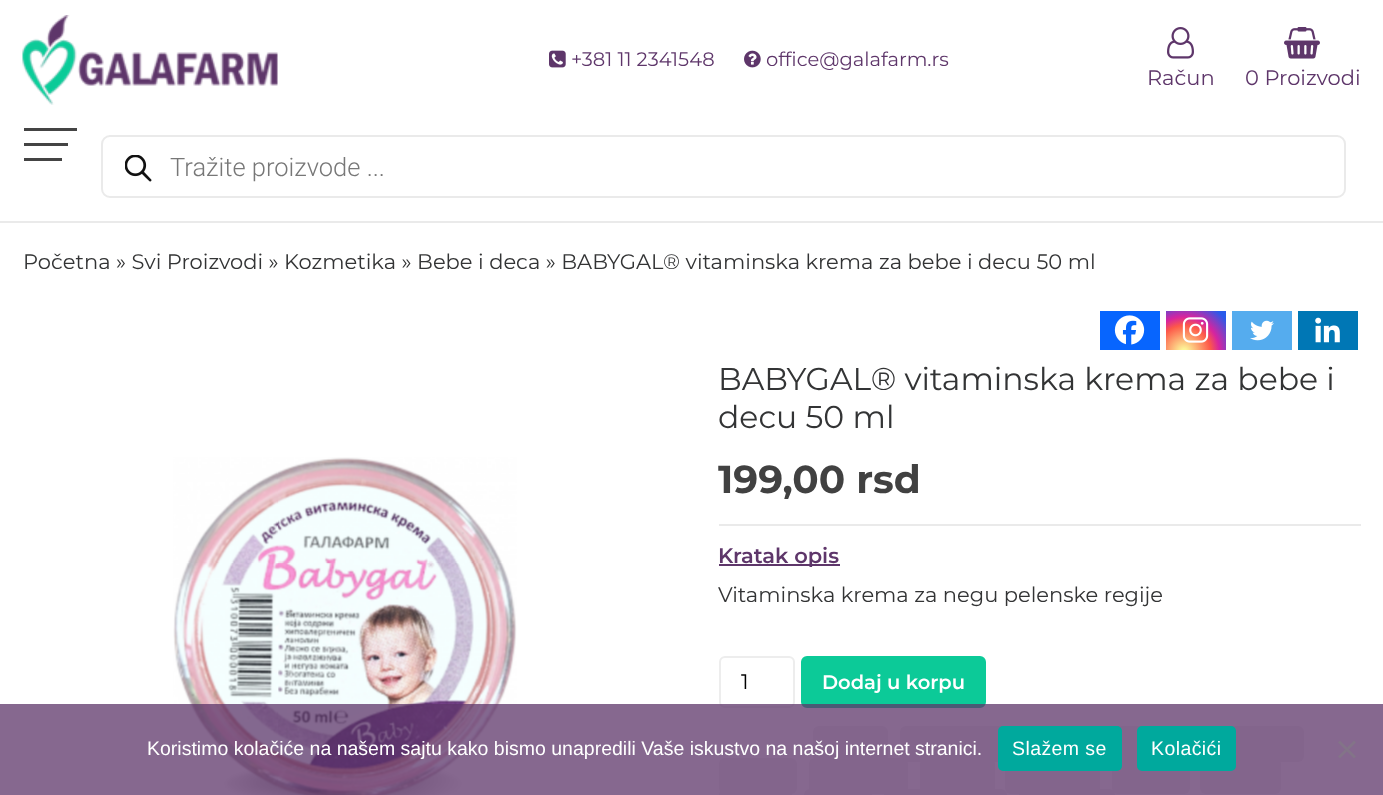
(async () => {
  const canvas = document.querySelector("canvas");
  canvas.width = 1383;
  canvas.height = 795;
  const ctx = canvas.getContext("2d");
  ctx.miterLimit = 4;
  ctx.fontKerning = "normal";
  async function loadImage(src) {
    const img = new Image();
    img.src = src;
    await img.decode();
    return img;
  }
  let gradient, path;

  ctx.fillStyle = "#ffffff";
  ctx.fillRect(0, 0, 1383, 795);
  ctx.fillStyle = "#eaeaea";
  ctx.fillRect(0, 221, 1383, 2);
  ctx.drawImage(await loadImage("img/1.png"), 22, 15, 256, 90);
  ctx.drawImage(await loadImage("img/2.png"), 549, 50, 17, 18);
  ctx.drawImage(await loadImage("img/3.png"), 744, 50, 17, 18);
  ctx.drawImage(await loadImage("img/4.png"), 1167, 27, 27, 32);
  ctx.drawImage(await loadImage("img/5.png"), 1284, 27, 36, 32);
  for (const [x, y, w, h, color] of [
    [24, 128, 53, 3, "#444444"],
    [24, 143, 44, 3, "#444444"],
    [24, 158, 38, 3, "#444444"],
  ]) {
    ctx.fillStyle = color;
    ctx.fillRect(x, y, w, h);
  }
  ctx.beginPath();
  ctx.roundRect(102, 136, 1243, 61, 8);
  ctx.strokeStyle = "#eaeaea";
  ctx.lineWidth = 2;
  ctx.stroke();
  ctx.drawImage(await loadImage("img/6.png"), 125, 155, 27, 27);
  ctx.drawImage(await loadImage("img/7.png"), 173, 457, 344, 338);
  ctx.fillStyle = "#0765fe";
  ctx.fillRect(1100, 311, 60, 39);
  ctx.drawImage(await loadImage("img/8.png"), 1114, 315, 31, 30);
  gradient = ctx.createRadialGradient(1184, 352, 0, 1184, 352, 59);
  gradient.addColorStop(0, "#fdf497");
  gradient.addColorStop(0.05, "#fdf497");
  gradient.addColorStop(0.45, "#fd5949");
  gradient.addColorStop(0.6, "#d6249f");
  gradient.addColorStop(0.9, "#285aeb");
  ctx.fillStyle = gradient;
  ctx.fillRect(1166, 311, 60, 39);
  ctx.drawImage(await loadImage("img/9.png"), 1182, 317, 27, 26);
  ctx.fillStyle = "#55acee";
  ctx.fillRect(1232, 311, 60, 39);
  ctx.drawImage(await loadImage("img/10.png"), 1250, 320, 24, 21);
  ctx.fillStyle = "#0077b5";
  ctx.fillRect(1298, 311, 60, 39);
  ctx.drawImage(await loadImage("img/11.png"), 1315, 317, 25, 26);
  ctx.fillStyle = "#eaeaea";
  ctx.fillRect(719, 524, 642, 2);
  ctx.fillStyle = "#5e366a";
  ctx.fillRect(719, 564, 121, 2);
  ctx.beginPath();
  ctx.roundRect(720, 657, 74, 50, 5);
  ctx.strokeStyle = "#ededed";
  ctx.stroke();
  ctx.fillStyle = "#0cca98";
  ctx.beginPath();
  ctx.roundRect(802, 657, 183, 50, 5);
  ctx.fill();
  ctx.strokeStyle = "#0cca98";
  ctx.stroke();
  ctx.fillStyle = "#f2f2f2";
  ctx.beginPath();
  ctx.roundRect(813, 726, 75, 36, 6);
  ctx.fill();
  ctx.beginPath();
  ctx.roundRect(900, 726, 110, 36, 6);
  ctx.fill();
  ctx.fillRect(1117, 726, 25, 32);
  ctx.beginPath();
  ctx.roundRect(1193, 726, 111, 36, 6);
  ctx.fill();
  ctx.beginPath();
  ctx.roundRect(719, 758, 78, 36, 6);
  ctx.fill();
  ctx.beginPath();
  ctx.roundRect(809, 758, 99, 36, 6);
  ctx.fill();
  ctx.beginPath();
  ctx.roundRect(920, 758, 75, 36, 6);
  ctx.fill();
  ctx.beginPath();
  ctx.roundRect(1005, 758, 95, 36, 6);
  ctx.fill();
  ctx.beginPath();
  ctx.roundRect(1112, 758, 78, 36, 6);
  ctx.fill();
  ctx.beginPath();
  ctx.roundRect(1200, 758, 81, 36, 6);
  ctx.fill();
  ctx.beginPath();
  ctx.roundRect(719, 789, 73, 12, 6);
  ctx.fill();
  ctx.beginPath();
  ctx.roundRect(804, 789, 68, 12, 6);
  ctx.fill();
  ctx.beginPath();
  ctx.roundRect(884, 789, 123, 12, 6);
  ctx.fill();
  ctx.beginPath();
  ctx.roundRect(1019, 789, 96, 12, 6);
  ctx.fill();
  ctx.fillStyle = "rgba(94, 54, 106, 0.75)";
  ctx.fillRect(0, 704, 1383, 91);
  ctx.fillStyle = "#00a99d";
  ctx.beginPath();
  ctx.roundRect(998, 726, 124, 45, 5);
  ctx.fill();
  ctx.beginPath();
  ctx.roundRect(1137, 726, 99, 45, 5);
  ctx.fill();
  ctx.fillStyle = "#837488";
  path = new Path2D("M1354 740.5L1356 742.5L1340 758.5L1338 756.5Z");
  ctx.fill(path);
  path = new Path2D("M1338 742.5L1340 740.5L1356 756.5L1354 758.5Z");
  ctx.fill(path);
  ctx.font = "19.5px Montserrat";
  ctx.fillStyle = "#5e366a";
  ctx.fillText("+381 11 2341548", 571, 66);
  ctx.fillText("office@galafarm.rs", 766, 66);
  ctx.font = "21px Montserrat";
  ctx.fillText("Račun", 1147, 85);
  ctx.fillText("0 Proizvodi", 1245, 85);
  ctx.font = "300 25.5px Roboto";
  ctx.fillStyle = "#777777";
  ctx.fillText("Tražite proizvode ...", 170, 176);
  ctx.font = "21px Montserrat";
  ctx.fillStyle = "#333435";
  ctx.fillText("Početna » Svi Proizvodi » Kozmetika » Bebe i deca » BABYGAL® vitaminska krema za bebe i decu 50 ml", 23, 269);
  ctx.font = "31.5px Montserrat";
  ctx.fillText("BABYGAL® vitaminska krema za bebe i", 718, 390);
  ctx.fillText("decu 50 ml", 718, 428);
  ctx.font = "bold 39px Montserrat";
  ctx.fillStyle = "#414141";
  ctx.fillText("199,00 rsd", 718, 493);
  ctx.font = "600 21px Montserrat";
  ctx.fillStyle = "#5e366a";
  ctx.fillText("Kratak opis", 718, 563);
  ctx.font = "21px Montserrat";
  ctx.fillStyle = "#333435";
  ctx.fillText("Vitaminska krema za negu pelenske regije", 718, 602);
  ctx.fillStyle = "#000000";
  ctx.fillText("1", 741, 689);
  ctx.font = "600 19.5px Montserrat";
  ctx.fillStyle = "#ffffff";
  ctx.fillText("Dodaj u korpu", 822, 689);
  ctx.font = "19.5px Liberation Sans";
  ctx.fillText("Koristimo kolačiće na našem sajtu kako bismo unapredili Vaše iskustvo na našoj internet stranici.", 147, 755);
  ctx.letterSpacing = "0.4px";
  ctx.fillText("Slažem se", 1012, 755);
  ctx.fillText("Kolačići", 1151, 755);
})();
